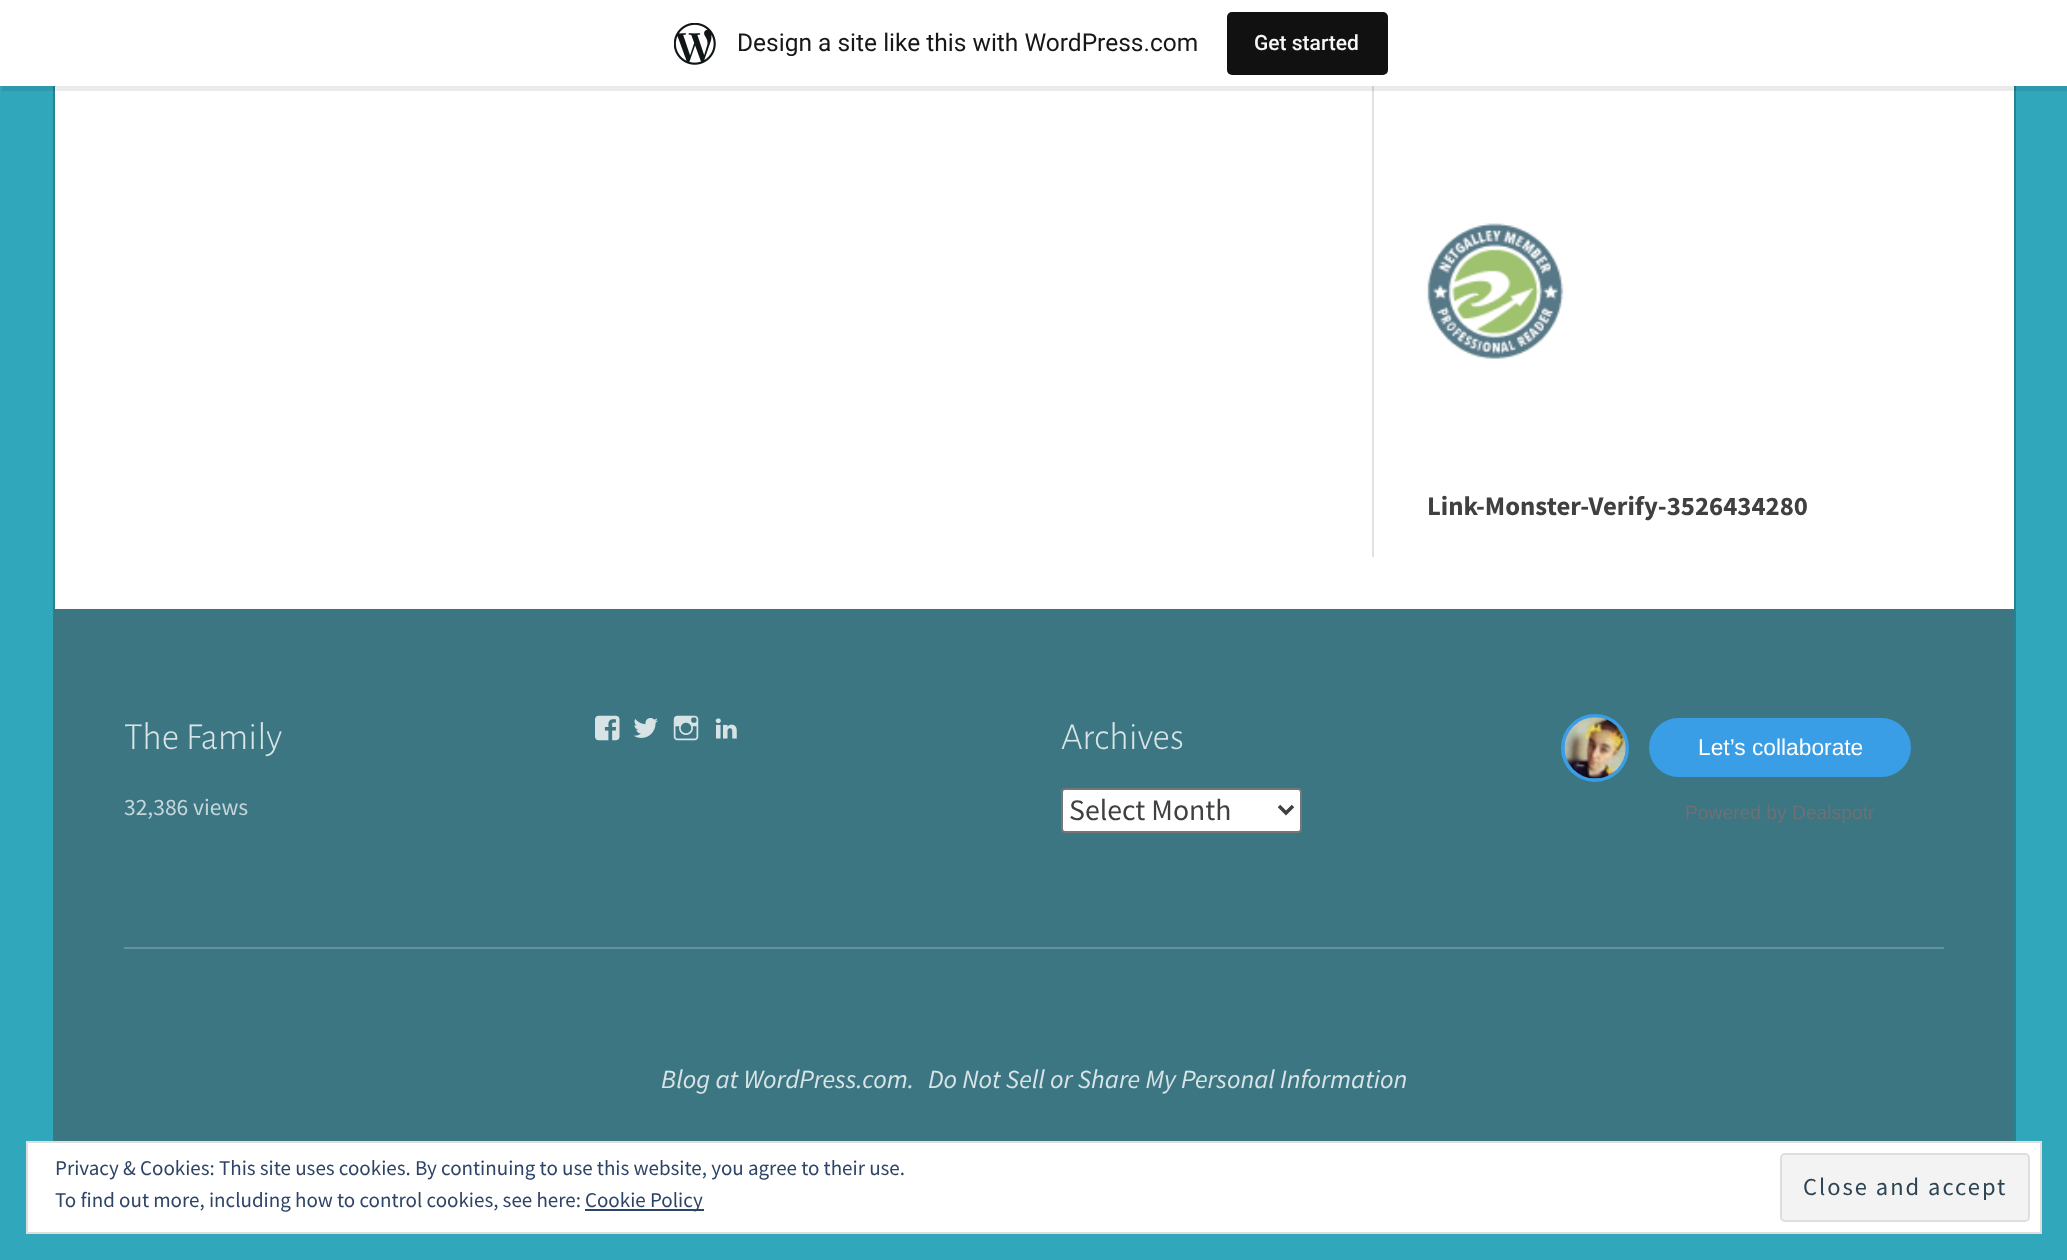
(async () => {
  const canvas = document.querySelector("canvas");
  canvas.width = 2067;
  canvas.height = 1260;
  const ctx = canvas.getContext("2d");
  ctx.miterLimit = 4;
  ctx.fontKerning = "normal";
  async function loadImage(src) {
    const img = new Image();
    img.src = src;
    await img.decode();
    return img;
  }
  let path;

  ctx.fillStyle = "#31a7bb";
  ctx.fillRect(0, 0, 2067, 1260);
  ctx.fillStyle = "#ffffff";
  ctx.fillRect(55, 86, 1959, 523);
  ctx.strokeStyle = "#268191";
  ctx.lineWidth = 2;
  ctx.strokeRect(54, -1, 1961, 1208);
  ctx.fillStyle = "#e1e1e1";
  ctx.fillRect(1372, 86, 2, 471);
  ctx.fillStyle = "rgba(0, 0, 0, 0.08)";
  path = new Path2D("M2 86V91H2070V5H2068V86Z");
  ctx.fill(path);
  ctx.fillStyle = "#ffffff";
  ctx.fillRect(0, 0, 2067, 86);
  ctx.drawImage(await loadImage("img/1.png"), 674, 23, 42, 42);
  ctx.fillStyle = "#111111";
  ctx.beginPath();
  ctx.roundRect(1227, 12, 161, 63, 5);
  ctx.fill();
  ctx.drawImage(await loadImage("img/2.png"), 1427, 223, 137, 136);
  ctx.fillStyle = "#3c7683";
  ctx.fillRect(54, 609, 1960, 532);
  ctx.fillStyle = "#63919c";
  ctx.fillRect(124, 947, 1820, 2);
  ctx.drawImage(await loadImage("img/3.png"), 595, 715, 25, 26);
  ctx.drawImage(await loadImage("img/4.png"), 633, 718, 25, 20);
  ctx.drawImage(await loadImage("img/5.png"), 673, 715, 26, 26);
  ctx.drawImage(await loadImage("img/6.png"), 715, 718, 22, 21);
  ctx.fillStyle = "#ffffff";
  ctx.beginPath();
  ctx.roundRect(1062, 789, 239, 43, 3);
  ctx.fill();
  ctx.strokeStyle = "#767676";
  ctx.stroke();
  path = new Path2D("M1279 806L1286 813L1293 806");
  ctx.strokeStyle = "#404040";
  ctx.lineWidth = 3.5;
  ctx.stroke(path);
  ctx.beginPath();
  ctx.arc(1595, 748, 32, 0, Math.PI * 2);
  ctx.strokeStyle = "#399ee5";
  ctx.lineWidth = 4;
  ctx.stroke();
  ctx.drawImage(await loadImage("img/7.png"), 1564, 717, 62, 62);
  ctx.fillStyle = "#399ee5";
  ctx.beginPath();
  ctx.roundRect(1649, 718, 262, 59, 29.5);
  ctx.fill();
  ctx.fillStyle = "#ffffff";
  ctx.beginPath();
  ctx.rect(27, 1142, 2014, 91);
  ctx.fill();
  ctx.strokeStyle = "#dedede";
  ctx.lineWidth = 2;
  ctx.stroke();
  ctx.fillStyle = "#2e4467";
  ctx.fillRect(585, 1209, 119, 2);
  ctx.fillStyle = "#f3f3f3";
  ctx.beginPath();
  ctx.roundRect(1781, 1154, 248, 67, 4);
  ctx.fill();
  ctx.stroke();
  ctx.font = "24.5px Roboto";
  ctx.fillStyle = "#171717";
  ctx.fillText("Design a site like this with WordPress.com", 737, 51);
  ctx.font = "500 21px Roboto";
  ctx.fillStyle = "#f6f7f7";
  ctx.fillText("Get started", 1254, 50);
  ctx.font = "bold 26.75px Source Sans Pro";
  ctx.fillStyle = "#404040";
  ctx.fillText("Link-Monster-Verify-3526434280", 1427, 515);
  ctx.font = "300 38.5px Alegreya Sans";
  ctx.fillStyle = "#d8e4e6";
  ctx.fillText("The Family", 124, 749);
  ctx.font = "23.5px Source Sans Pro";
  ctx.fillStyle = "#c5d6da";
  ctx.fillText("32,386 views", 124, 815);
  ctx.font = "300 38.5px Alegreya Sans";
  ctx.fillStyle = "#d8e4e6";
  ctx.fillText("Archives", 1061, 749);
  ctx.font = "29.75px Source Sans Pro";
  ctx.fillStyle = "#404040";
  ctx.fillText("Select Month", 1069, 820);
  ctx.font = "22.75px Liberation Sans";
  ctx.fillStyle = "#ffffff";
  ctx.fillText("Let’s collaborate", 1698, 755);
  ctx.font = "19.25px Liberation Sans";
  ctx.fillStyle = "#6e7074";
  ctx.fillText("Powered by Dealspotr", 1685, 819);
  ctx.font = "italic 26.25px Source Sans Pro";
  ctx.fillStyle = "#d8e4e6";
  ctx.fillText("Blog at WordPress.com.", 661, 1088);
  ctx.fillText("Do Not Sell or Share My Personal Information", 928, 1088);
  ctx.font = "21px Source Sans Pro";
  ctx.fillStyle = "#2e4467";
  for (const [text, x, y] of [
    ["Privacy & Cookies: This site uses cookies. By continuing to use this website, you agree to their use.", 55, 1175],
    ["To find out more, including how to control cookies, see here:", 55, 1207],
    ["Cookie Policy", 585, 1207],
  ]) {
    ctx.fillText(text, x, y);
  }
  ctx.letterSpacing = "2px";
  ctx.font = "24.5px Source Sans Pro";
  ctx.fillStyle = "#2e4453";
  ctx.fillText("Close and accept", 1803, 1195);
})();
